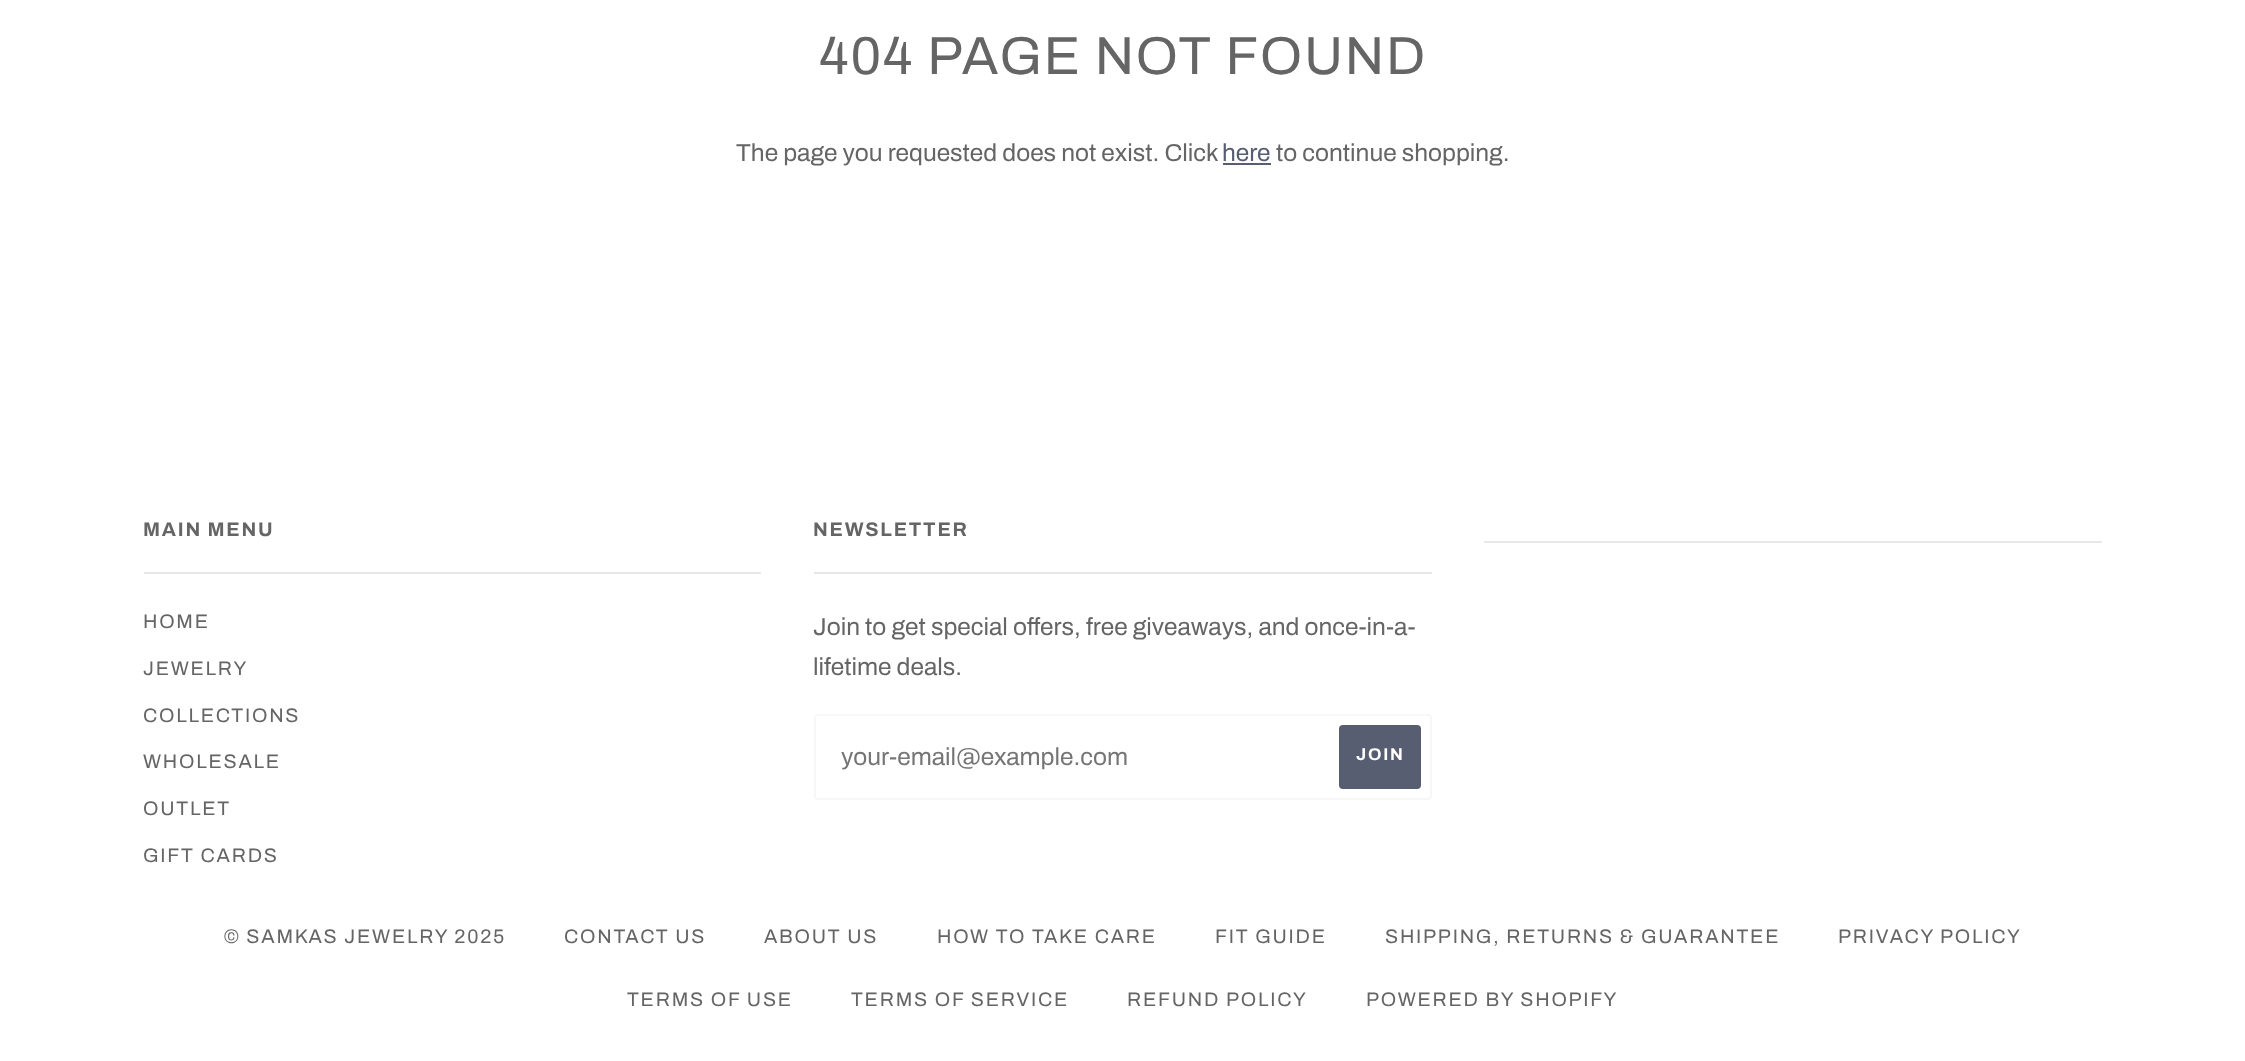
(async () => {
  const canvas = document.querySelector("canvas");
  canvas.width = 2245;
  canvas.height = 1061;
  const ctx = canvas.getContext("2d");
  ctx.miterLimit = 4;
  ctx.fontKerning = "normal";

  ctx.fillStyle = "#ffffff";
  ctx.fillRect(0, 0, 2245, 1061);
  for (const [x, y, w, h, color] of [
    [1223, 163, 48, 2, "#585e71"],
    [144, 572, 617, 2, "#e8e8e8"],
    [814, 572, 618, 2, "#e8e8e8"],
  ]) {
    ctx.fillStyle = color;
    ctx.fillRect(x, y, w, h);
  }
  ctx.beginPath();
  ctx.roundRect(815, 715, 616, 84, 3);
  ctx.strokeStyle = "#f7f7f7";
  ctx.lineWidth = 2;
  ctx.stroke();
  ctx.fillStyle = "#585e71";
  ctx.beginPath();
  ctx.roundRect(1339, 725, 82, 64, 4);
  ctx.fill();
  ctx.fillStyle = "#e8e8e8";
  ctx.fillRect(1484, 541, 618, 2);
  ctx.letterSpacing = "1.75px";
  ctx.font = "53.5px Archivo";
  ctx.fillStyle = "#656565";
  ctx.fillText("404 PAGE NOT FOUND", 819, 74);
  ctx.letterSpacing = "0px";
  ctx.font = "24.5px Archivo";
  ctx.fillText("The page you requested does not exist. Click", 736, 161);
  ctx.fillStyle = "#585e71";
  ctx.fillText("here", 1222, 161);
  ctx.fillStyle = "#656565";
  ctx.fillText("to continue shopping.", 1276, 161);
  ctx.letterSpacing = "1.75px";
  ctx.font = "bold 19.6px Archivo";
  ctx.fillText("MAIN MENU", 143, 536);
  ctx.font = "19.6px Archivo";
  for (const [text, x, y] of [
    ["HOME", 143, 628],
    ["JEWELRY", 143, 675],
    ["COLLECTIONS", 143, 722],
    ["WHOLESALE", 143, 768],
    ["OUTLET", 143, 815],
    ["GIFT CARDS", 143, 862],
  ]) {
    ctx.fillText(text, x, y);
  }
  ctx.font = "bold 19.6px Archivo";
  ctx.fillText("NEWSLETTER", 813, 536);
  ctx.letterSpacing = "0px";
  ctx.font = "24.5px Archivo";
  ctx.fillText("Join to get special offers, free giveaways, and once-in-a-", 813, 635);
  ctx.fillText("lifetime deals.", 813, 675);
  ctx.fillStyle = "#757575";
  ctx.fillText("your-email@example.com", 841, 765);
  ctx.letterSpacing = "1.75px";
  ctx.font = "bold 17px Archivo";
  ctx.fillStyle = "#ffffff";
  ctx.fillText("JOIN", 1356, 760);
  ctx.font = "19.6px Archivo";
  ctx.fillStyle = "#656565";
  for (const [text, x, y] of [
    ["© SAMKAS JEWELRY 2025", 224, 943],
    ["CONTACT US", 564, 943],
    ["ABOUT US", 764, 943],
    ["HOW TO TAKE CARE", 937, 943],
    ["FIT GUIDE", 1215, 943],
    ["SHIPPING, RETURNS & GUARANTEE", 1385, 943],
    ["PRIVACY POLICY", 1838, 943],
    ["TERMS OF USE", 627, 1006],
    ["TERMS OF SERVICE", 851, 1006],
    ["REFUND POLICY", 1127, 1006],
    ["POWERED BY SHOPIFY", 1366, 1006],
  ]) {
    ctx.fillText(text, x, y);
  }
})();
